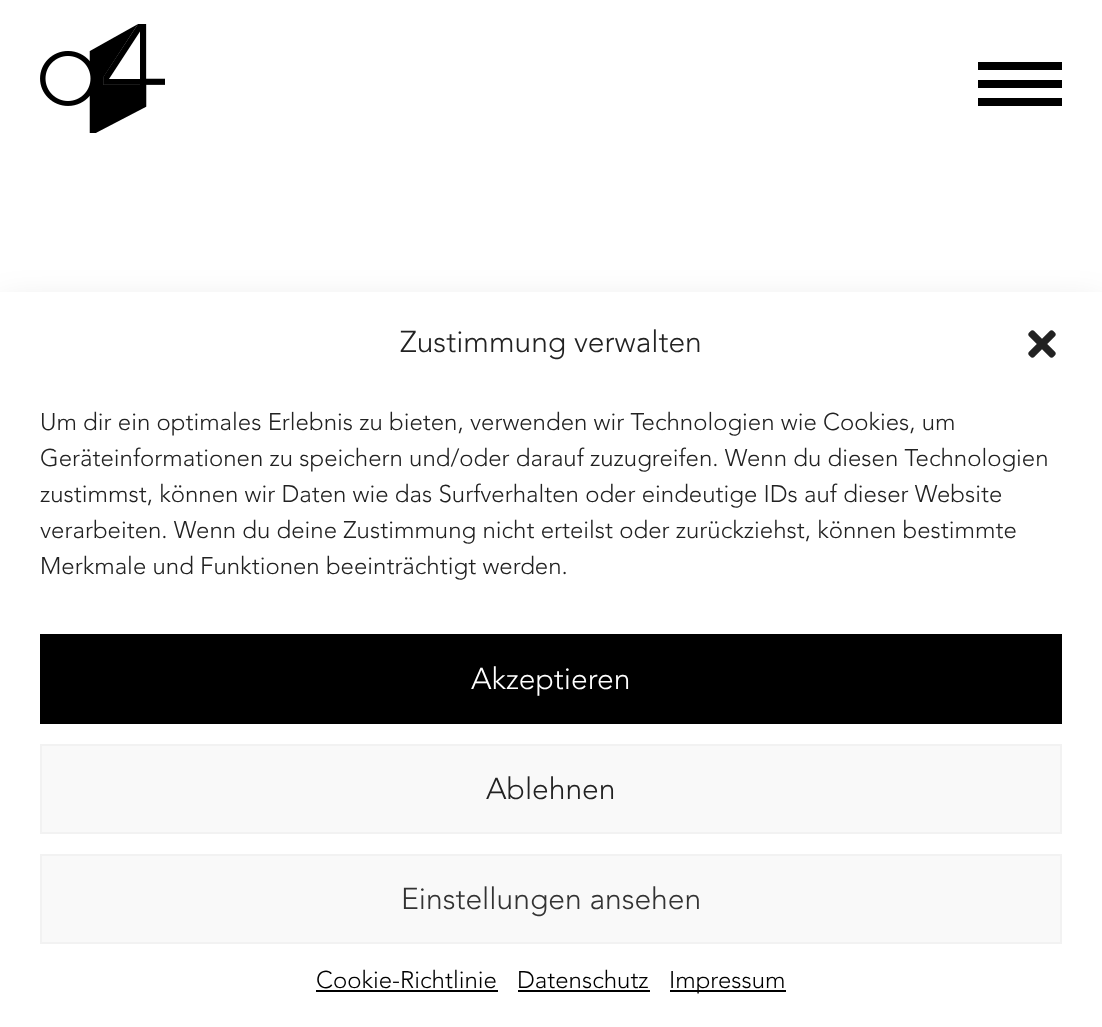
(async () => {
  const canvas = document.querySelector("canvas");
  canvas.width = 1102;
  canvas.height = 1027;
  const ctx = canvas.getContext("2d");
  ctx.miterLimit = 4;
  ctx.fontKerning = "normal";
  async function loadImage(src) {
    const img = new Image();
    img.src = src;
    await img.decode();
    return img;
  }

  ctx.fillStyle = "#ffffff";
  ctx.fillRect(0, 0, 1102, 1027);
  ctx.drawImage(await loadImage("img/1.png"), 40, 24, 125, 109);
  for (const [x, y, w, h, color] of [
    [978, 62, 84, 8, "#000000"],
    [978, 80, 84, 8, "#000000"],
    [978, 98, 84, 8, "#000000"],
  ]) {
    ctx.fillStyle = color;
    ctx.fillRect(x, y, w, h);
  }
  ctx.fillStyle = "rgba(0, 0, 0, 0.19)";
  ctx.filter = "blur(20px)";
  ctx.beginPath();
  ctx.rect(0, 312, 1102, 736);
  ctx.fill();
  ctx.filter = "none";
  ctx.fillStyle = "#ffffff";
  ctx.fillRect(0, 292, 1102, 735);
  ctx.drawImage(await loadImage("img/2.png"), 1028, 330, 28, 28);
  ctx.fillStyle = "#000000";
  ctx.fillRect(40, 634, 1022, 90);
  ctx.fillStyle = "#f9f9f9";
  ctx.beginPath();
  ctx.rect(41, 745, 1020, 88);
  ctx.fill();
  ctx.strokeStyle = "#f2f2f2";
  ctx.lineWidth = 2;
  ctx.stroke();
  ctx.beginPath();
  ctx.rect(41, 855, 1020, 88);
  ctx.fill();
  ctx.stroke();
  for (const [x, y, w, h, color] of [
    [316, 990, 182, 2, "#000000"],
    [518, 990, 132, 2, "#000000"],
    [670, 990, 116, 2, "#000000"],
  ]) {
    ctx.fillStyle = color;
    ctx.fillRect(x, y, w, h);
  }
  ctx.font = "300 30px Avenir";
  ctx.fillStyle = "#222222";
  ctx.fillText("Zustimmung verwalten", 400, 352);
  ctx.font = "300 24px Avenir";
  for (const [text, x, y] of [
    ["Um dir ein optimales Erlebnis zu bieten, verwenden wir Technologien wie Cookies, um", 40, 430],
    ["Geräteinformationen zu speichern und/oder darauf zuzugreifen. Wenn du diesen Technologien", 40, 466],
    ["zustimmst, können wir Daten wie das Surfverhalten oder eindeutige IDs auf dieser Website", 40, 502],
    ["verarbeiten. Wenn du deine Zustimmung nicht erteilst oder zurückziehst, können bestimmte", 40, 538],
    ["Merkmale und Funktionen beeinträchtigt werden.", 40, 574],
  ]) {
    ctx.fillText(text, x, y);
  }
  ctx.font = "300 30px Avenir";
  ctx.fillStyle = "#ffffff";
  ctx.fillText("Akzeptieren", 471, 689);
  ctx.fillStyle = "#222222";
  ctx.fillText("Ablehnen", 486, 799);
  ctx.fillStyle = "#333333";
  ctx.fillText("Einstellungen ansehen", 401, 909);
  ctx.font = "300 24px Avenir";
  ctx.fillStyle = "#000000";
  for (const [text, x, y] of [
    ["Cookie-Richtlinie", 316, 988],
    ["Datenschutz", 517, 988],
    ["Impressum", 669, 988],
  ]) {
    ctx.fillText(text, x, y);
  }
})();
